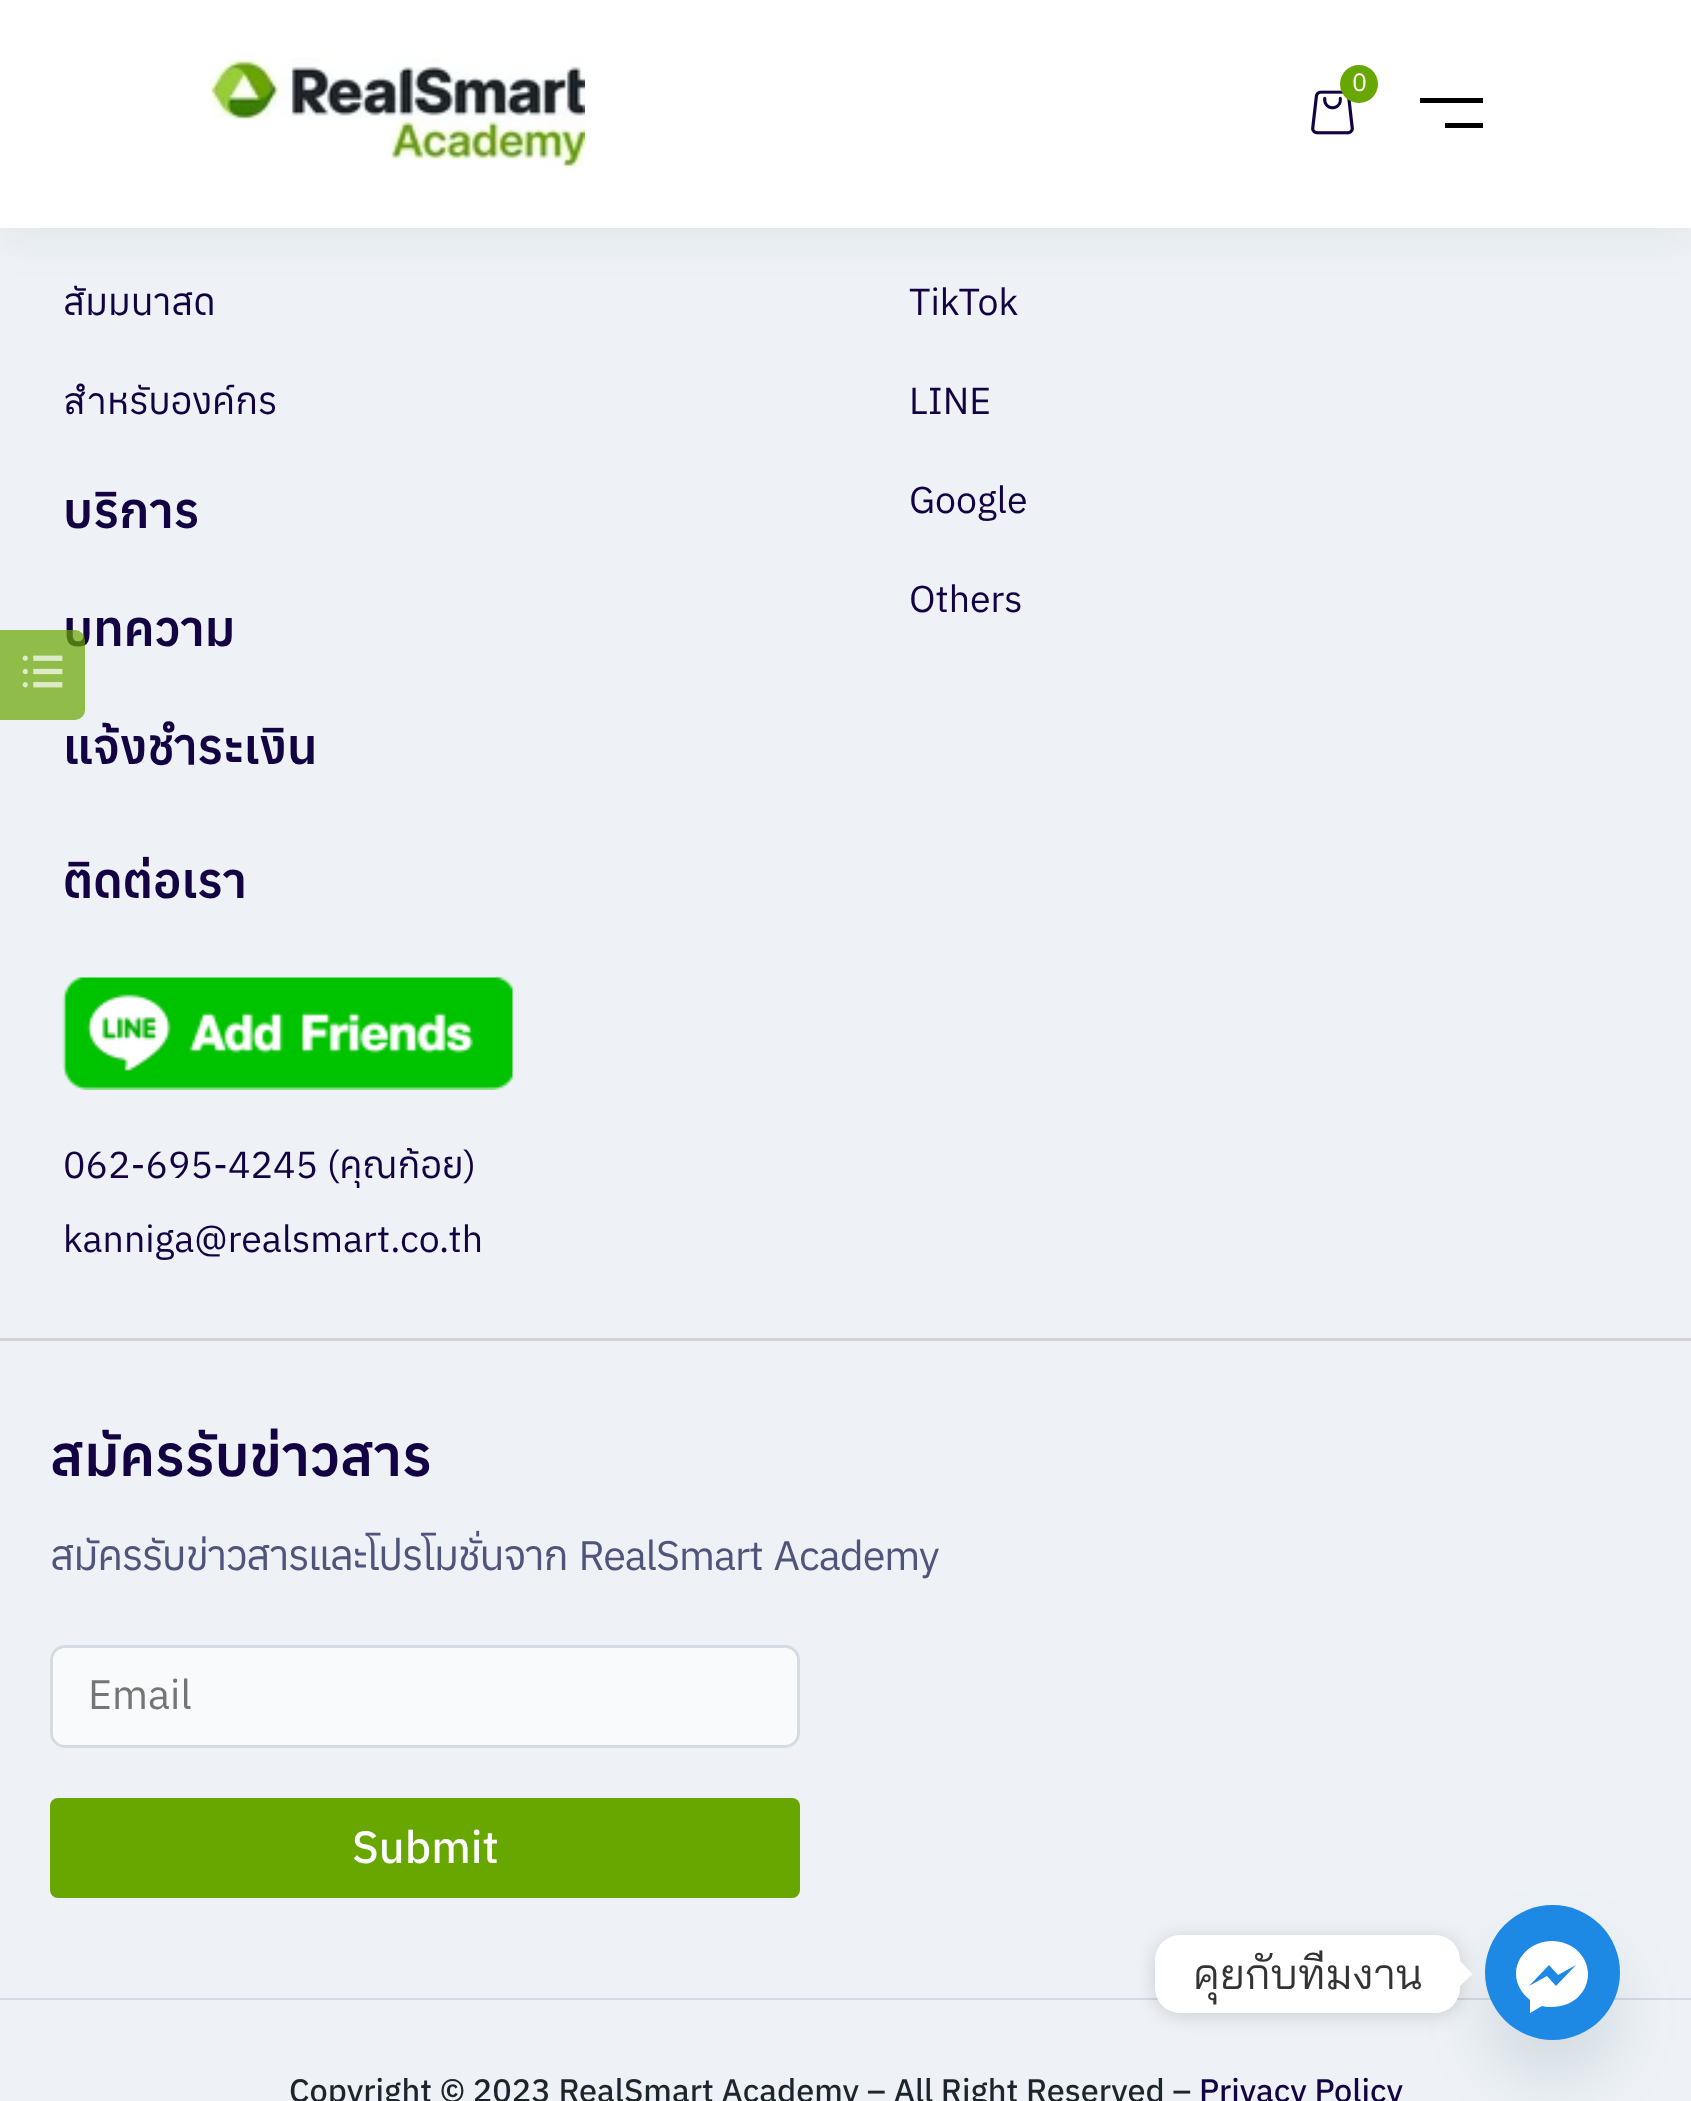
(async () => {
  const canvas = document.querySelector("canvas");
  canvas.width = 1691;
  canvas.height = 2101;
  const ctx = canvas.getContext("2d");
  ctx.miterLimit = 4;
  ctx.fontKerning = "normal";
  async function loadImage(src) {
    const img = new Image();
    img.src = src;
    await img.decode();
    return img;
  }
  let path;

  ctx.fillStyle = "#eef2f6";
  ctx.fillRect(0, 0, 1691, 2101);
  ctx.fillStyle = "rgba(64, 79, 104, 0.06)";
  ctx.filter = "blur(19px)";
  ctx.beginPath();
  ctx.rect(0, 15, 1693, 228);
  ctx.fill();
  ctx.filter = "none";
  ctx.fillStyle = "#ffffff";
  ctx.fillRect(0, 0, 1691, 228);
  ctx.drawImage(await loadImage("img/1.png"), 209, 58, 376, 112);
  ctx.drawImage(await loadImage("img/2.png"), 1311, 90, 43, 45);
  ctx.fillStyle = "#68a600";
  ctx.beginPath();
  ctx.arc(1359, 84, 19, 0, Math.PI * 2);
  ctx.fill();
  ctx.fillStyle = "#000000";
  ctx.fillRect(1420, 98, 63, 5);
  ctx.fillRect(1445, 123, 38, 5);
  ctx.drawImage(await loadImage("img/3.png"), 62, 977, 451, 113);
  ctx.fillStyle = "#d2d2d2";
  ctx.fillRect(0, 1338, 1691, 3);
  ctx.fillStyle = "#f9fafb";
  ctx.beginPath();
  ctx.roundRect(51.5, 1646.5, 747, 100, 13.5);
  ctx.fill();
  ctx.strokeStyle = "#d3dce3";
  ctx.lineWidth = 3;
  ctx.stroke();
  ctx.fillStyle = "#68a600";
  ctx.beginPath();
  ctx.roundRect(50, 1798, 750, 100, 8);
  ctx.fill();
  ctx.fillStyle = "#d6d8e2";
  ctx.fillRect(0, 1998, 1691, 2);
  ctx.fillStyle = "rgba(73, 104, 126, 0.16)";
  ctx.filter = "blur(30px)";
  ctx.beginPath();
  ctx.roundRect(1485, 1945, 135, 135, 67.5);
  ctx.fill();
  ctx.filter = "none";
  ctx.fillStyle = "#1e88e5";
  ctx.beginPath();
  ctx.arc(1552.5, 1972.5, 67.5, 0, Math.PI * 2);
  ctx.fill();
  ctx.fillStyle = "rgba(0, 0, 0, 0.15)";
  ctx.filter = "blur(9.5px)";
  ctx.beginPath();
  ctx.roundRect(1155, 1938, 305, 77, 25);
  ctx.fill();
  ctx.filter = "none";
  ctx.fillStyle = "#ffffff";
  ctx.beginPath();
  ctx.roundRect(1155, 1935, 305, 78, 25);
  ctx.fill();
  path = new Path2D("M1460 1986V1961L1472.5 1974Z");
  ctx.fill(path);
  path = new Path2D("M1516 1974C1516 1956 1532 1941 1552 1941C1572 1941 1588 1956 1588 1974C1588 1993 1572 2007 1552 2007C1549 2007 1545 2007 1542 2006L1530 2013V2000C1522 1994 1516 1984 1516 1974ZM1547 1976L1556 1986L1576 1965L1558 1975L1549 1965L1529 1986Z");
  ctx.fill(path, "evenodd");
  ctx.font = "25px Anuphan";
  ctx.fillText("0", 1352, 91);
  ctx.font = "37.5px Anuphan";
  ctx.fillStyle = "#140342";
  ctx.fillText("สัมมนาสด", 63, 315);
  ctx.fillText("สำหรับองค์กร", 63, 414);
  ctx.font = "600 48.75px Anuphan";
  ctx.fillText("บริการ", 63, 528);
  ctx.fillText("บทความ", 63, 646);
  ctx.font = "37.5px Anuphan";
  for (const [text, x, y] of [
    ["TikTok", 909, 315],
    ["LINE", 909, 414],
    ["Google", 909, 513],
    ["Others", 909, 612],
  ]) {
    ctx.fillText(text, x, y);
  }
  ctx.font = "600 48.75px Anuphan";
  ctx.fillText("แจ้งชำระเงิน", 63, 764);
  ctx.fillText("ติดต่อเรา", 63, 898);
  ctx.font = "37.5px Anuphan";
  ctx.fillText("062-695-4245 (คุณก้อย)", 63, 1178);
  ctx.fillText("kanniga@realsmart.co.th", 63, 1252);
  ctx.font = "600 56.25px Anuphan";
  ctx.fillText("สมัครรับข่าวสาร", 50, 1476);
  ctx.letterSpacing = "-1px";
  ctx.wordSpacing = "2px";
  ctx.font = "41.25px Anuphan";
  ctx.fillStyle = "#4f547b";
  ctx.fillText("สมัครรับข่าวสารและโปรโมชั่นจาก RealSmart Academy", 50, 1570);
  ctx.letterSpacing = "0px";
  ctx.wordSpacing = "0px";
  ctx.fillStyle = "#757575";
  ctx.fillText("Email", 88, 1709);
  ctx.font = "500 45px Anuphan";
  ctx.fillStyle = "#ffffff";
  ctx.fillText("Submit", 352, 1863);
  ctx.font = "500 32.5px Anuphan";
  ctx.fillStyle = "#1d252c";
  ctx.fillText("Copyright © 2023 RealSmart Academy – All Right Reserved –", 289, 2102);
  ctx.fillStyle = "#140342";
  ctx.fillText("Privacy Policy", 1199, 2102);
  ctx.fillStyle = "rgba(104, 166, 0, 0.7)";
  ctx.beginPath();
  ctx.roundRect(0, 630, 85, 90, [0, 10, 10, 0]);
  ctx.fill();
  ctx.drawImage(await loadImage("img/4.png"), 22, 655, 41, 33);
  ctx.font = "42.5px Bai Jamjuree";
  ctx.fillStyle = "#333333";
  ctx.fillText("คุยกับทีมงาน", 1193, 1989);
})();
